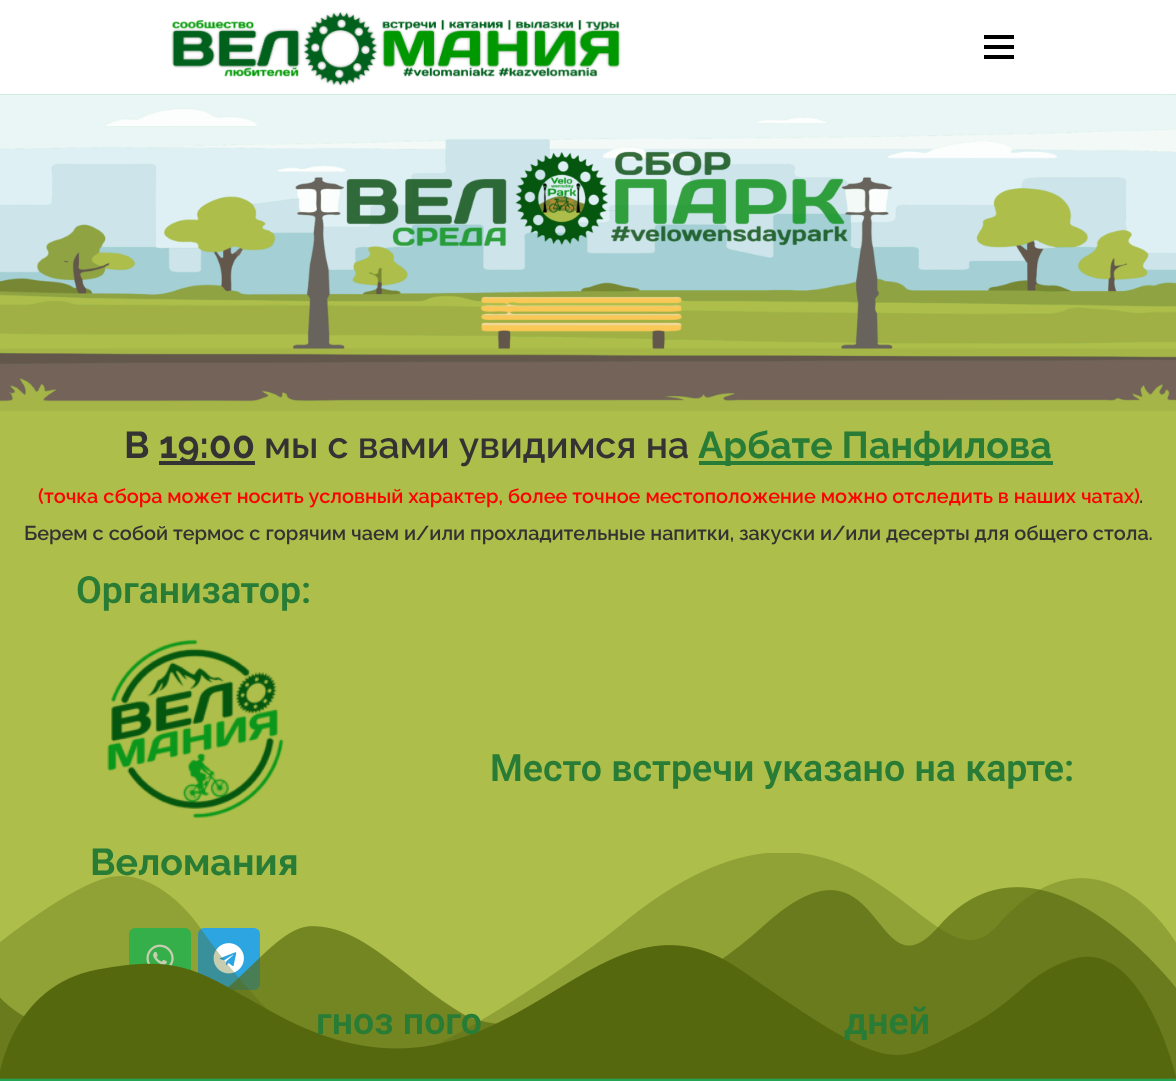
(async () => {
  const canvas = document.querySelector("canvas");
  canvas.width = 1176;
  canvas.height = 1081;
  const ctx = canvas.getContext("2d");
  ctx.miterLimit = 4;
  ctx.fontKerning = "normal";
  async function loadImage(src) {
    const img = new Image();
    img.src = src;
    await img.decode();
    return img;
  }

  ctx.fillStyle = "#23a455";
  ctx.fillRect(0, 0, 1176, 1081);
  ctx.fillStyle = "#ffffff";
  ctx.fillRect(0, 0, 1176, 94);
  ctx.drawImage(await loadImage("img/1.png"), 171, 12, 450, 74);
  for (const [x, y, w, h, color] of [
    [984, 45, 30, 4, "#000000"],
    [984, 35, 30, 4, "#000000"],
    [984, 55, 30, 4, "#000000"],
  ]) {
    ctx.fillStyle = color;
    ctx.fillRect(x, y, w, h);
  }
  ctx.drawImage(await loadImage("img/2.png"), 0, 94, 1176, 317);
  for (const [x, y, w, h, color] of [
    [0, 411, 1176, 666, "#adbe4a"],
    [159, 461, 96, 4, "#333333"],
    [699, 461, 354, 4, "#287c35"],
  ]) {
    ctx.fillStyle = color;
    ctx.fillRect(x, y, w, h);
  }
  ctx.drawImage(await loadImage("img/3.png"), 107, 639, 177, 180);
  ctx.fillStyle = "#25d366";
  ctx.beginPath();
  ctx.roundRect(129, 928, 62, 62, 6);
  ctx.fill();
  ctx.drawImage(await loadImage("img/4.png"), 146, 944, 28, 22);
  ctx.fillStyle = "#2ca5e0";
  ctx.beginPath();
  ctx.roundRect(198, 928, 62, 62, 6);
  ctx.fill();
  ctx.drawImage(await loadImage("img/5.png"), 213, 943, 31, 31);
  ctx.font = "bold 37.5px Raleway";
  ctx.fillStyle = "#333333";
  ctx.fillText("В", 124, 458);
  ctx.fillText("19:00", 159, 458);
  ctx.font = "600 37.5px Raleway";
  ctx.fillText("мы с вами увидимся на", 264, 458);
  ctx.font = "bold 37.5px Raleway";
  ctx.fillStyle = "#287c35";
  ctx.fillText("Арбате Панфилова", 698, 458);
  ctx.font = "600 19.92px Raleway";
  ctx.fillStyle = "#ff0000";
  ctx.fillText("(точка сбора может носить условный характер, более точное местоположение можно отследить в наших чатах)", 38, 503);
  ctx.fillStyle = "#333333";
  ctx.fillText(".", 1139, 503);
  ctx.fillText("Берем с собой термос с горячим чаем и/или прохладительные напитки, закуски и/или десерты для общего стола.", 24, 540);
  ctx.font = "600 37.5px Roboto";
  ctx.fillStyle = "#287c35";
  ctx.fillText("Организатор:", 76, 603);
  ctx.font = "bold 37.5px Raleway";
  ctx.fillText("Веломания", 90, 875);
  ctx.font = "600 37.5px Roboto";
  ctx.fillText("Место встречи указано на карте:", 490, 781);
  ctx.drawImage(await loadImage("img/6.png"), 0, 853, 1176, 226);
  ctx.fillText("гноз пого", 316, 1034);
  ctx.fillText("дней", 844, 1034);
})();
